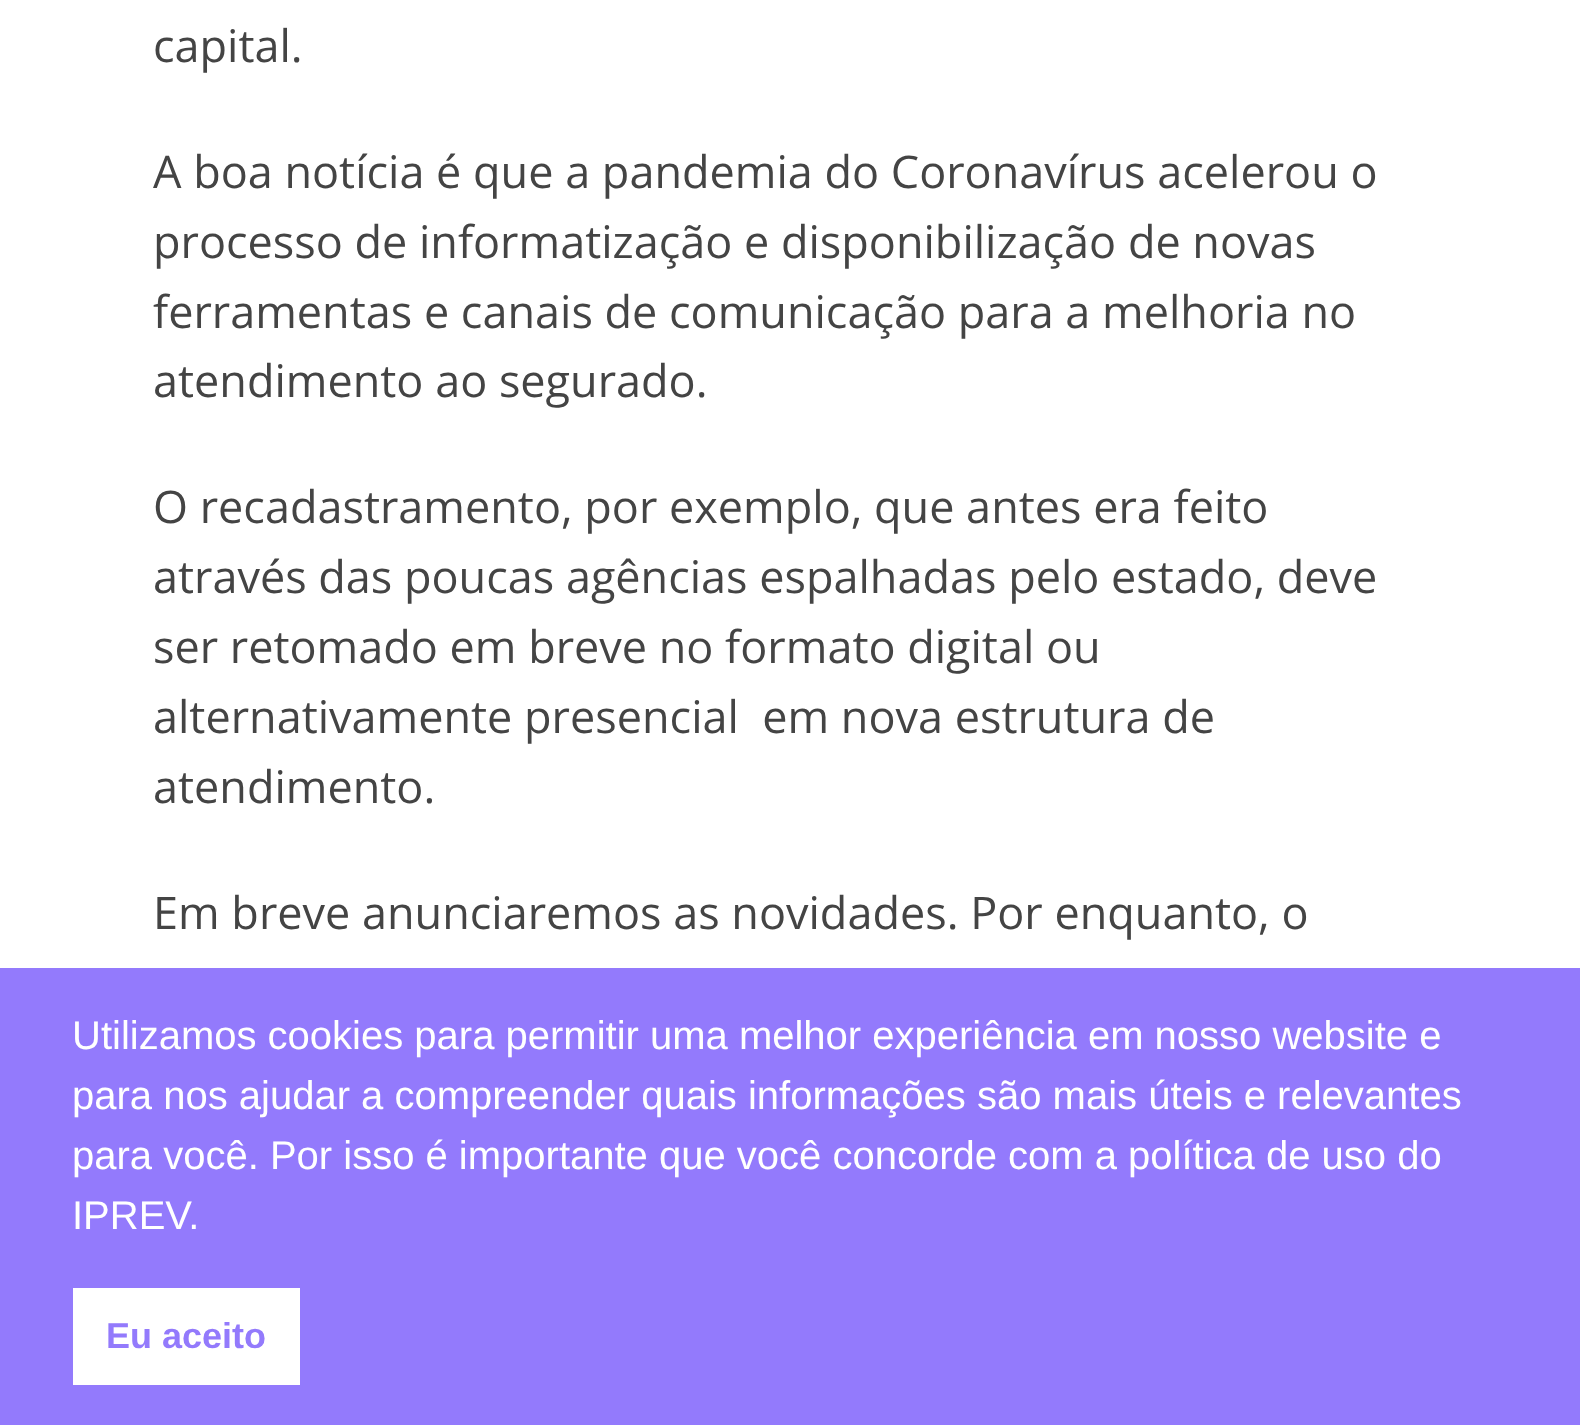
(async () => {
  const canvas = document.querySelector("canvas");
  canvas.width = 1580;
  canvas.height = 1425;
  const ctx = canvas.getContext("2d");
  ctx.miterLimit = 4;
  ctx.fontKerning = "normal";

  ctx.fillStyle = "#ffffff";
  ctx.fillRect(0, 0, 1580, 1425);
  ctx.fillStyle = "#937afc";
  ctx.fillRect(0, 968, 1580, 457);
  ctx.fillStyle = "#ffffff";
  ctx.fillRect(73, 1288, 227, 97);
  ctx.font = "45px Open Sans";
  ctx.fillStyle = "#444444";
  for (const [text, x, y] of [
    ["capital.", 153, 62],
    ["A boa notícia é que a pandemia do Coronavírus acelerou o", 153, 188],
    ["processo de informatização e disponibilização de novas", 153, 258],
    ["ferramentas e canais de comunicação para a melhoria no", 153, 328],
    ["atendimento ao segurado.", 153, 397],
    ["O recadastramento, por exemplo, que antes era feito", 153, 523],
    ["através das poucas agências espalhadas pelo estado, deve", 153, 593],
    ["ser retomado em breve no formato digital ou", 153, 663],
    ["alternativamente presencial  em nova estrutura de", 153, 733],
    ["atendimento.", 153, 803],
    ["Em breve anunciaremos as novidades. Por enquanto, o", 153, 929],
  ]) {
    ctx.fillText(text, x, y);
  }
  ctx.font = "40px Liberation Sans";
  ctx.fillStyle = "#ffffff";
  for (const [text, x, y] of [
    ["Utilizamos cookies para permitir uma melhor experiência em nosso website e", 72, 1049],
    ["para nos ajudar a compreender quais informações são mais úteis e relevantes", 72, 1109],
    ["para você. Por isso é importante que você concorde com a política de uso do", 72, 1169],
    ["IPREV.", 72, 1229],
  ]) {
    ctx.fillText(text, x, y);
  }
  ctx.font = "bold 36px Liberation Sans";
  ctx.fillStyle = "#937afc";
  ctx.fillText("Eu aceito", 106, 1348);
})();
